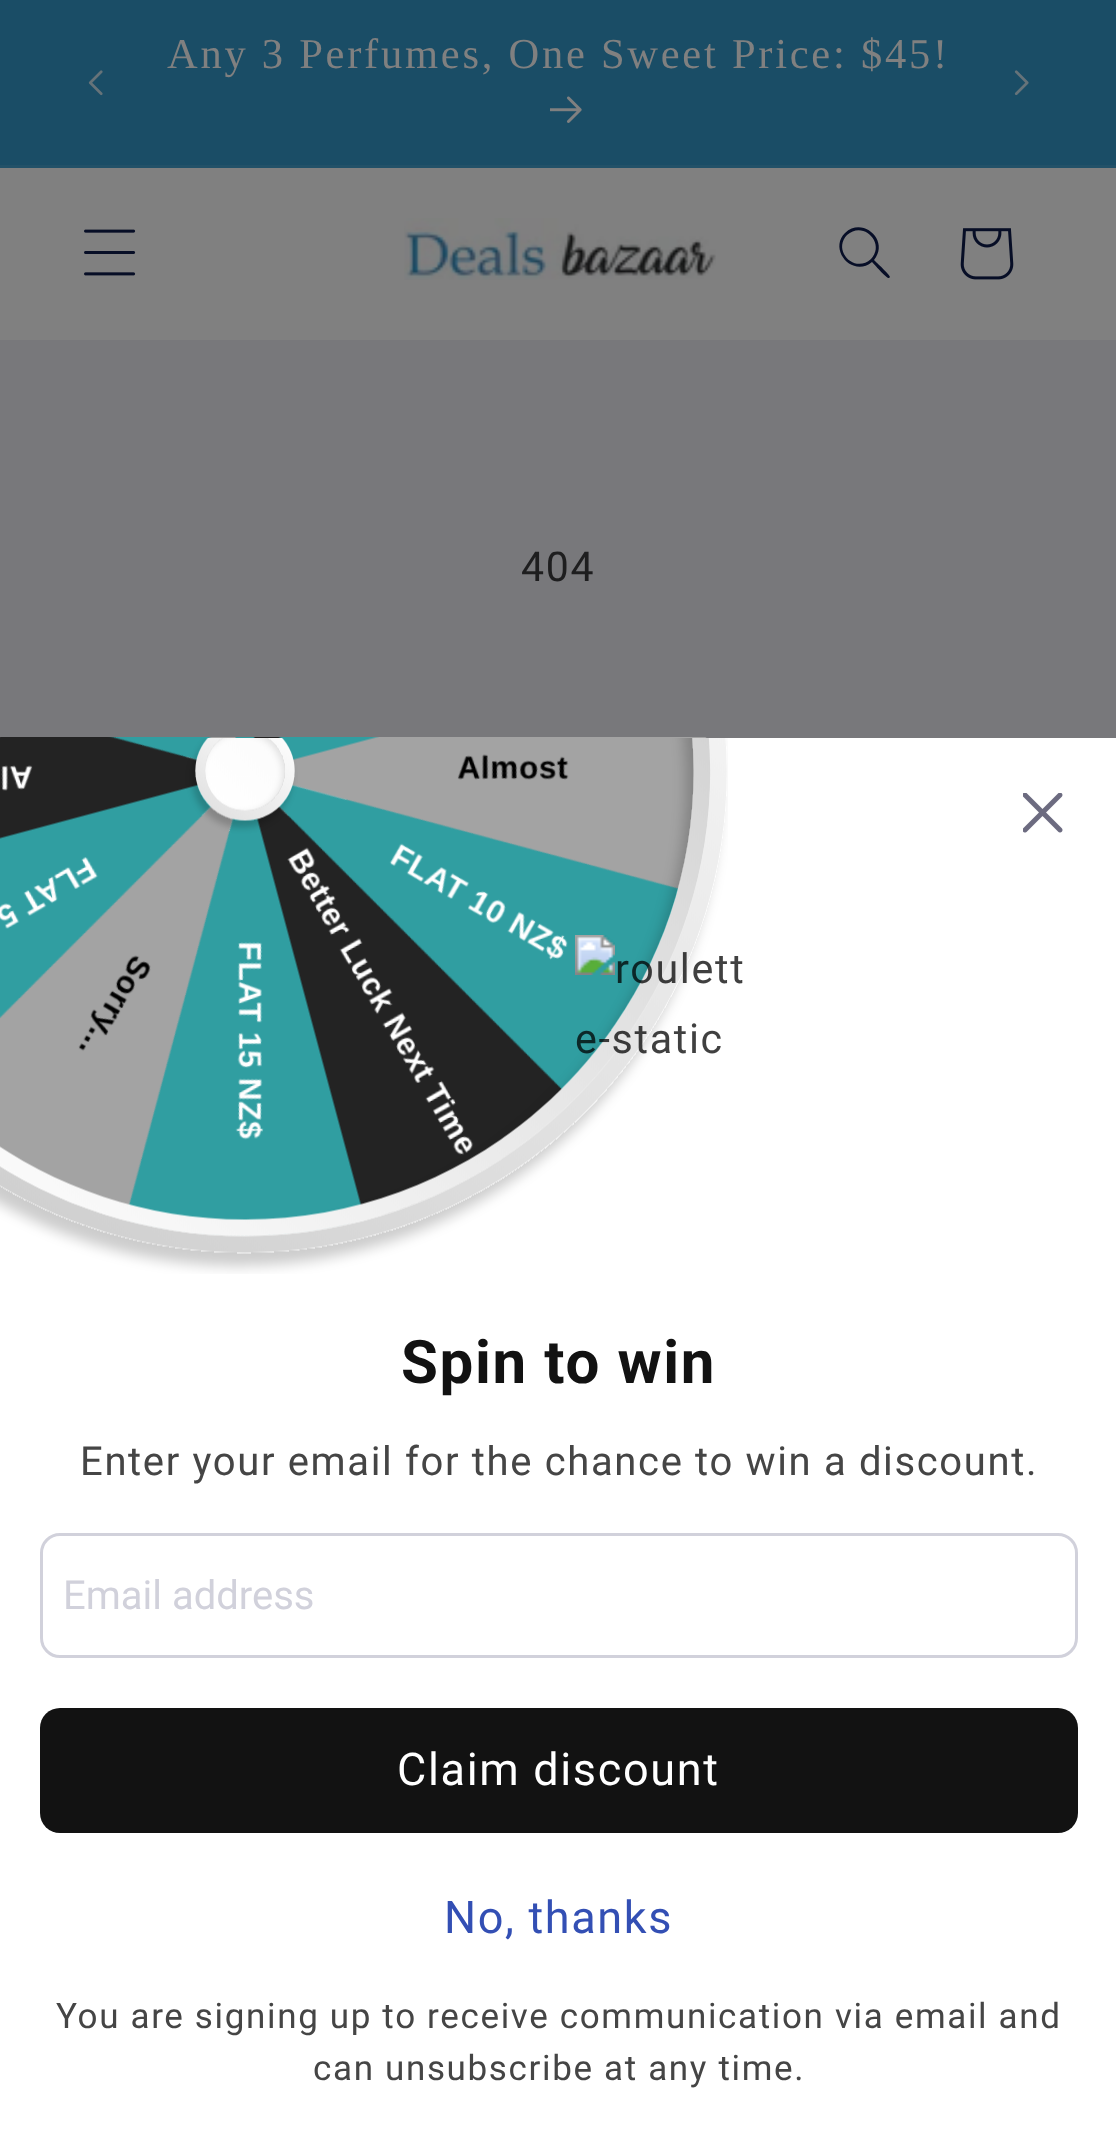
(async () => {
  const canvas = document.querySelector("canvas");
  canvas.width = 1116;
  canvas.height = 2134;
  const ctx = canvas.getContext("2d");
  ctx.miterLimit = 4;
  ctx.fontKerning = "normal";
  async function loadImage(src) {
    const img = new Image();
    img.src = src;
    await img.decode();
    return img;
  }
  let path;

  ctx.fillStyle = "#78787b";
  ctx.fillRect(0, 0, 1116, 2134);
  ctx.fillStyle = "#1a4d66";
  ctx.fillRect(0, 0, 1116, 165);
  ctx.fillStyle = "#225168";
  ctx.fillRect(0, 165, 1116, 3);
  ctx.drawImage(await loadImage("img/1.png"), 550, 96, 32, 27);
  ctx.drawImage(await loadImage("img/2.png"), 88, 70, 15, 26);
  ctx.drawImage(await loadImage("img/3.png"), 1014, 70, 15, 26);
  ctx.fillStyle = "#808080";
  ctx.fillRect(0, 168, 1116, 172);
  ctx.drawImage(await loadImage("img/4.png"), 84, 229, 52, 47);
  ctx.drawImage(await loadImage("img/5.png"), 404, 218, 312, 62);
  ctx.fillStyle = "#070e27";
  path = new Path2D("M871 259C855 274 832 251 847 235C863 220 886 243 871 259ZM872 262C853 278 828 250 845 233C863 216 890 241 874 260C876 262 890 275 890 277L889 278C887 279 874 264 872 262Z");
  ctx.fill(path, "evenodd");
  ctx.drawImage(await loadImage("img/6.png"), 960, 228, 54, 52);
  ctx.fillStyle = "#ffffff";
  ctx.fillRect(0, 738, 1116, 1396);
  ctx.drawImage(await loadImage("img/7.png"), 0, 737, 707, 499);
  ctx.drawImage(await loadImage("img/8.png"), 0, 738, 728, 536);
  ctx.drawImage(await loadImage("img/9.png"), 575, 935, 168, 119);
  ctx.drawImage(await loadImage("img/10.png"), 1023, 793, 40, 40);
  ctx.beginPath();
  ctx.roundRect(41.5, 1534.5, 1035, 122, 18.5);
  ctx.strokeStyle = "#d1d1db";
  ctx.lineWidth = 3;
  ctx.stroke();
  ctx.fillStyle = "#121212";
  ctx.beginPath();
  ctx.roundRect(40, 1708, 1038, 125, 20);
  ctx.fill();
  ctx.letterSpacing = "2.75px";
  ctx.font = "42.5px Liberation Serif";
  ctx.fillStyle = "#808080";
  ctx.fillText("Any 3 Perfumes, One Sweet Price: $45!", 167, 68);
  ctx.letterSpacing = "1.65px";
  ctx.font = "41px Roboto";
  ctx.fillStyle = "#1e1e1f";
  ctx.fillText("404", 521, 581);
  ctx.font = "bold 60px Roboto";
  ctx.fillStyle = "#121212";
  ctx.fillText("Spin to win", 401, 1383);
  ctx.font = "40px Roboto";
  ctx.fillStyle = "#454545";
  ctx.fillText("Enter your email for the chance to win a discount.", 80, 1475);
  ctx.letterSpacing = "0px";
  ctx.fillStyle = "#d1d1db";
  ctx.fillText("Email address", 63, 1609);
  ctx.letterSpacing = "1.65px";
  ctx.font = "45px Roboto";
  ctx.fillStyle = "#ffffff";
  ctx.fillText("Claim discount", 397, 1785);
  ctx.fillStyle = "#334fb4";
  ctx.fillText("No, thanks", 444, 1933);
  ctx.font = "35px Roboto";
  ctx.fillStyle = "#454545";
  ctx.fillText("You are signing up to receive communication via email and", 56, 2028);
  ctx.fillText("can unsubscribe at any time.", 313, 2080);
})();
